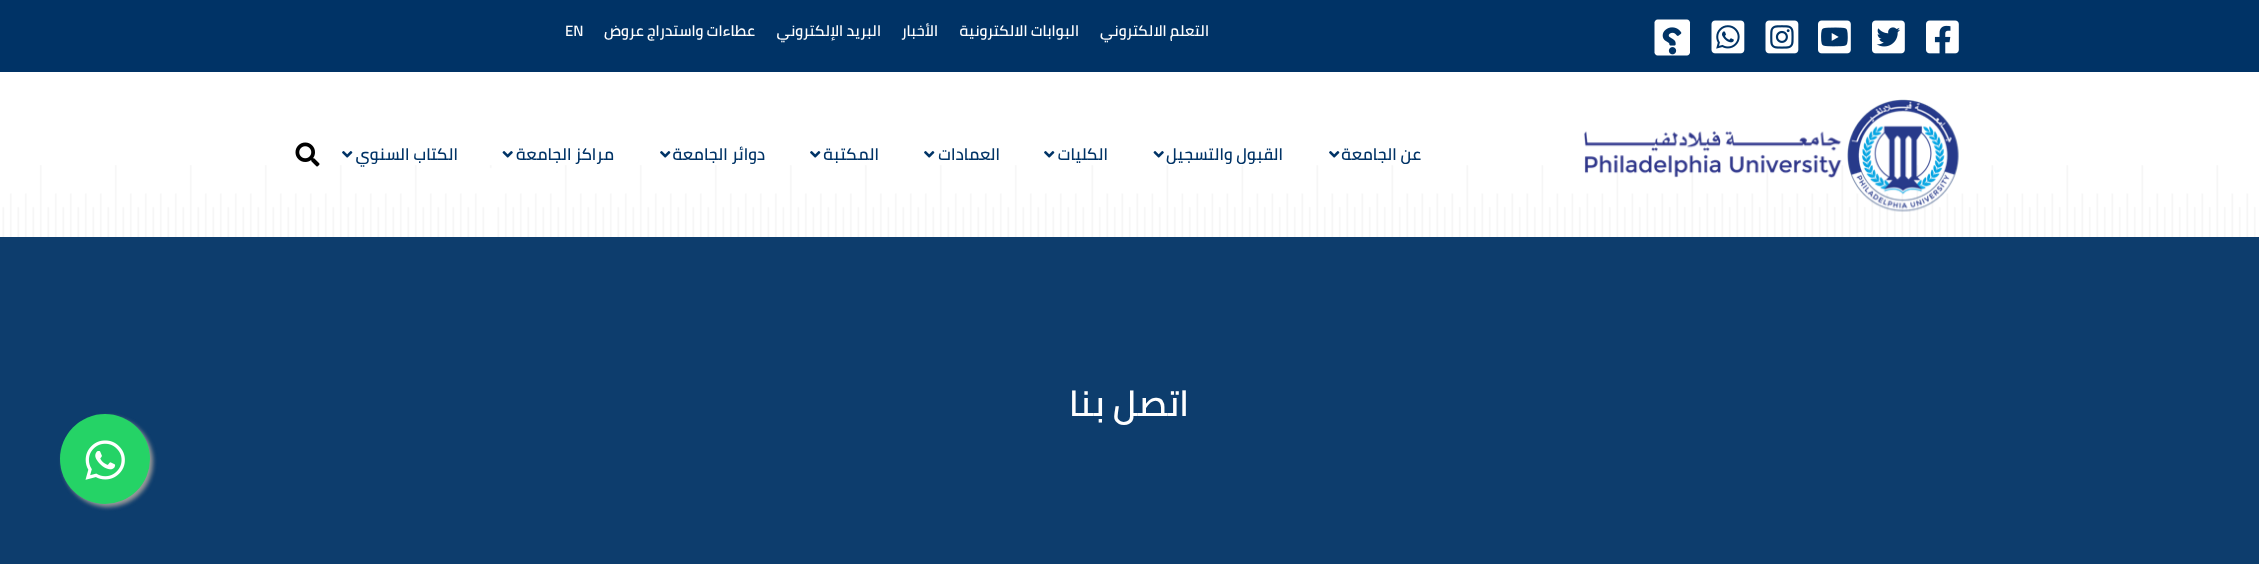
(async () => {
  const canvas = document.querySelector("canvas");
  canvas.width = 2259;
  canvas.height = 564;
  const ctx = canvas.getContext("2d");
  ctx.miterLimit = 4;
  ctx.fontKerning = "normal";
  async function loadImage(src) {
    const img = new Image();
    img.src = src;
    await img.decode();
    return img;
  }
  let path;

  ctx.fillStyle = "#003366";
  ctx.fillRect(0, 0, 2259, 564);
  ctx.drawImage(await loadImage("img/1.png"), 1926, 20, 33, 34);
  ctx.drawImage(await loadImage("img/2.png"), 1872, 20, 33, 34);
  ctx.drawImage(await loadImage("img/3.png"), 1818, 20, 33, 34);
  ctx.drawImage(await loadImage("img/4.png"), 1765, 20, 34, 34);
  ctx.drawImage(await loadImage("img/5.png"), 1711, 20, 34, 34);
  ctx.fillStyle = "#ffffff";
  path = new Path2D("M1687 19.5H1657.5C1656 19.5 1654.5 21 1654.5 22.5V52.5C1654.5 54 1656 55.5 1657.5 55.5H1687C1688.5 55.5 1690 54 1690 52.5V22.5C1690 21 1688.5 19.5 1687 19.5Z");
  ctx.fill(path);
  ctx.drawImage(await loadImage("img/6.png"), 1662, 27, 20, 28);
  ctx.fillRect(0, 72, 2259, 165);
  ctx.drawImage(await loadImage("img/7.png"), 2, 165, 2254, 72);
  ctx.drawImage(await loadImage("img/8.png"), 1583, 99, 376, 113);
  ctx.drawImage(await loadImage("img/9.png"), 1329, 151, 11, 7);
  ctx.drawImage(await loadImage("img/10.png"), 1153, 151, 11, 7);
  ctx.drawImage(await loadImage("img/9.png"), 1044, 151, 11, 7);
  ctx.drawImage(await loadImage("img/9.png"), 924, 151, 11, 7);
  ctx.drawImage(await loadImage("img/9.png"), 810, 151, 11, 7);
  ctx.drawImage(await loadImage("img/9.png"), 660, 151, 11, 7);
  ctx.drawImage(await loadImage("img/10.png"), 502, 151, 11, 7);
  ctx.drawImage(await loadImage("img/9.png"), 342, 151, 11, 7);
  ctx.drawImage(await loadImage("img/11.png"), 295, 142, 25, 25);
  ctx.fillStyle = "#0d3d6d";
  ctx.fillRect(0, 237, 2259, 327);
  ctx.fillStyle = "#999999";
  ctx.filter = "blur(2px)";
  ctx.beginPath();
  ctx.roundRect(63, 417, 90, 90, 45);
  ctx.fill();
  ctx.filter = "none";
  ctx.fillStyle = "#25d366";
  ctx.beginPath();
  ctx.arc(105, 459, 45, 0, Math.PI * 2);
  ctx.fill();
  ctx.drawImage(await loadImage("img/12.png"), 85, 440, 40, 40);
  ctx.direction = "rtl";
  ctx.font = "600 15px Cairo";
  ctx.fillStyle = "#ffffff";
  for (const [text, x, y] of [
    ["التعلم الالكتروني", 1209, 36],
    ["البوابات الالكترونية", 1079, 36],
    ["الأخبار", 938, 36],
    ["البريد الإلكتروني", 881, 36],
    ["عطاءات واستدراج عروض", 755, 36],
  ]) {
    ctx.fillText(text, x, y);
  }
  ctx.direction = "ltr";
  ctx.fillText("EN", 565, 36);
  ctx.direction = "rtl";
  ctx.font = "600 16.5px Cairo";
  ctx.fillStyle = "#003366";
  for (const [text, x, y] of [
    ["عن الجامعة", 1421, 160],
    ["القبول والتسجيل", 1283, 160],
    ["الكليات", 1108, 160],
    ["العمادات", 1000, 160],
    ["المكتبة", 879, 160],
    ["دوائر الجامعة", 765, 160],
    ["مراكز الجامعة", 614, 160],
    ["الكتاب السنوي", 458, 160],
  ]) {
    ctx.fillText(text, x, y);
  }
  ctx.font = "600 36px Cairo";
  ctx.fillStyle = "#ffffff";
  ctx.fillText("اتصل بنا", 1189, 416);
})();
